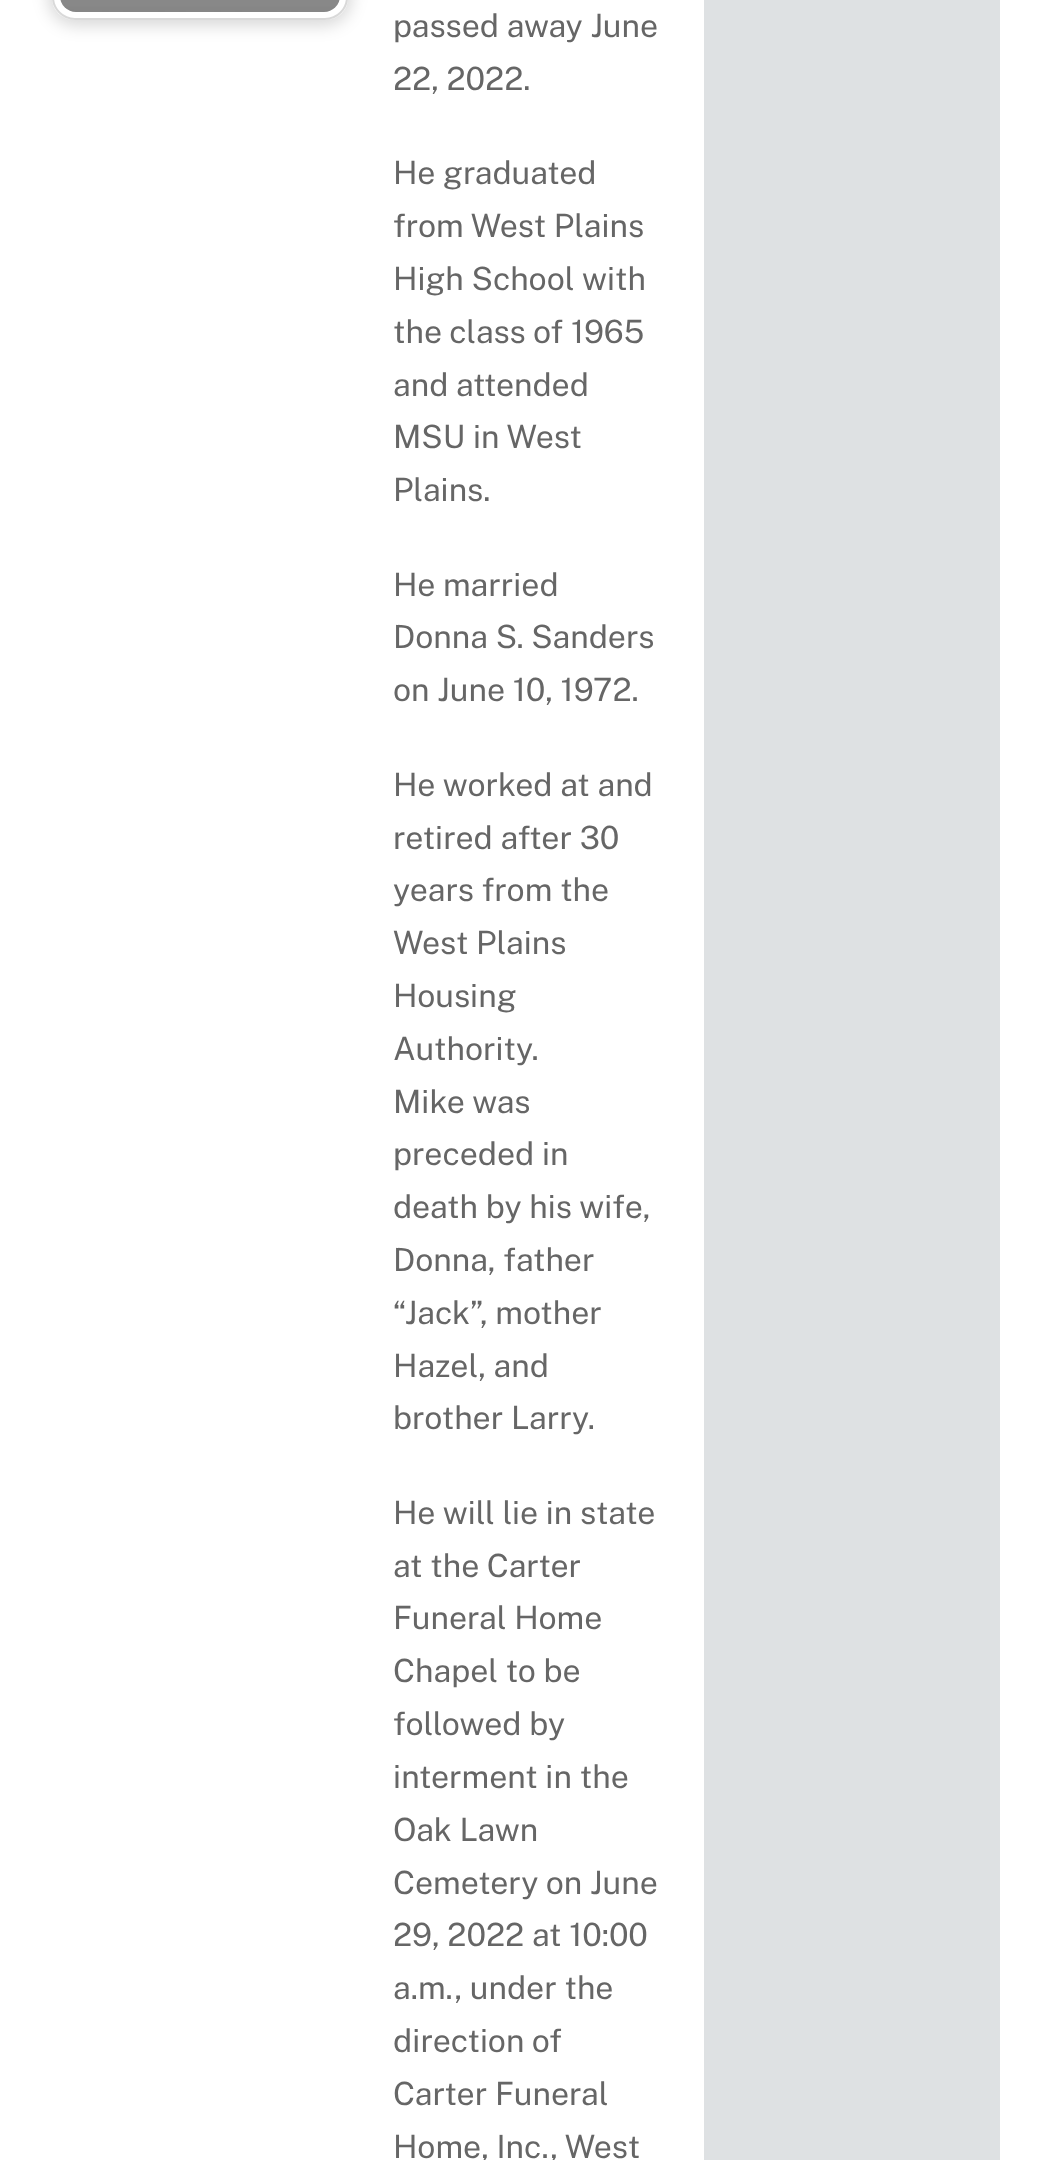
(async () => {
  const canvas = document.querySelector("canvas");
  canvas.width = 1051;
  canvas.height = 2160;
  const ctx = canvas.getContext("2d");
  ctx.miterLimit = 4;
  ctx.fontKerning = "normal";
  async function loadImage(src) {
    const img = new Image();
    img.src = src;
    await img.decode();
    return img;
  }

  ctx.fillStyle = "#ffffff";
  ctx.fillRect(0, 0, 1051, 2160);
  ctx.fillStyle = "rgba(0, 0, 0, 0.15)";
  ctx.filter = "blur(8px)";
  ctx.beginPath();
  ctx.roundRect(48, -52, 304, 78, 28);
  ctx.fill();
  ctx.filter = "none";
  ctx.fillStyle = "#ffffff";
  ctx.beginPath();
  ctx.roundRect(52, -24, 296, 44, 24);
  ctx.fill();
  ctx.beginPath();
  ctx.roundRect(53, -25, 294, 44, 23);
  ctx.strokeStyle = "rgba(0, 0, 0, 0.15)";
  ctx.lineWidth = 2;
  ctx.stroke();
  ctx.drawImage(await loadImage("img/1.png"), 60, 0, 280, 12);
  ctx.fillStyle = "#dee1e3";
  ctx.fillRect(704, 0, 296, 2160);
  ctx.font = "32px Public Sans";
  ctx.fillStyle = "#666666";
  for (const [text, x, y] of [
    ["passed away June", 393, 37],
    ["22, 2022.", 393, 90],
    ["He graduated", 393, 184],
    ["from West Plains", 393, 237],
    ["High School with", 393, 290],
    ["the class of 1965", 393, 343],
    ["and attended", 393, 396],
    ["MSU in West", 393, 448],
    ["Plains.", 393, 501],
    ["He married", 393, 596],
    ["Donna S. Sanders", 393, 648],
    ["on June 10, 1972.", 393, 701],
    ["He worked at and", 393, 796],
    ["retired after 30", 393, 849],
    ["years from the", 393, 901],
    ["West Plains", 393, 954],
    ["Housing", 393, 1007],
    ["Authority.", 393, 1060],
    ["Mike was", 393, 1113],
    ["preceded in", 393, 1165],
    ["death by his wife,", 393, 1218],
    ["Donna, father", 393, 1271],
    ["“Jack”, mother", 393, 1324],
    ["Hazel, and", 393, 1377],
    ["brother Larry.", 393, 1429],
    ["He will lie in state", 393, 1524],
    ["at the Carter", 393, 1577],
    ["Funeral Home", 393, 1629],
    ["Chapel to be", 393, 1682],
    ["followed by", 393, 1735],
    ["interment in the", 393, 1788],
    ["Oak Lawn", 393, 1841],
    ["Cemetery on June", 393, 1894],
    ["29, 2022 at 10:00", 393, 1946],
    ["a.m., under the", 393, 1999],
    ["direction of", 393, 2052],
    ["Carter Funeral", 393, 2105],
    ["Home, Inc., West", 393, 2158],
  ]) {
    ctx.fillText(text, x, y);
  }
})();
